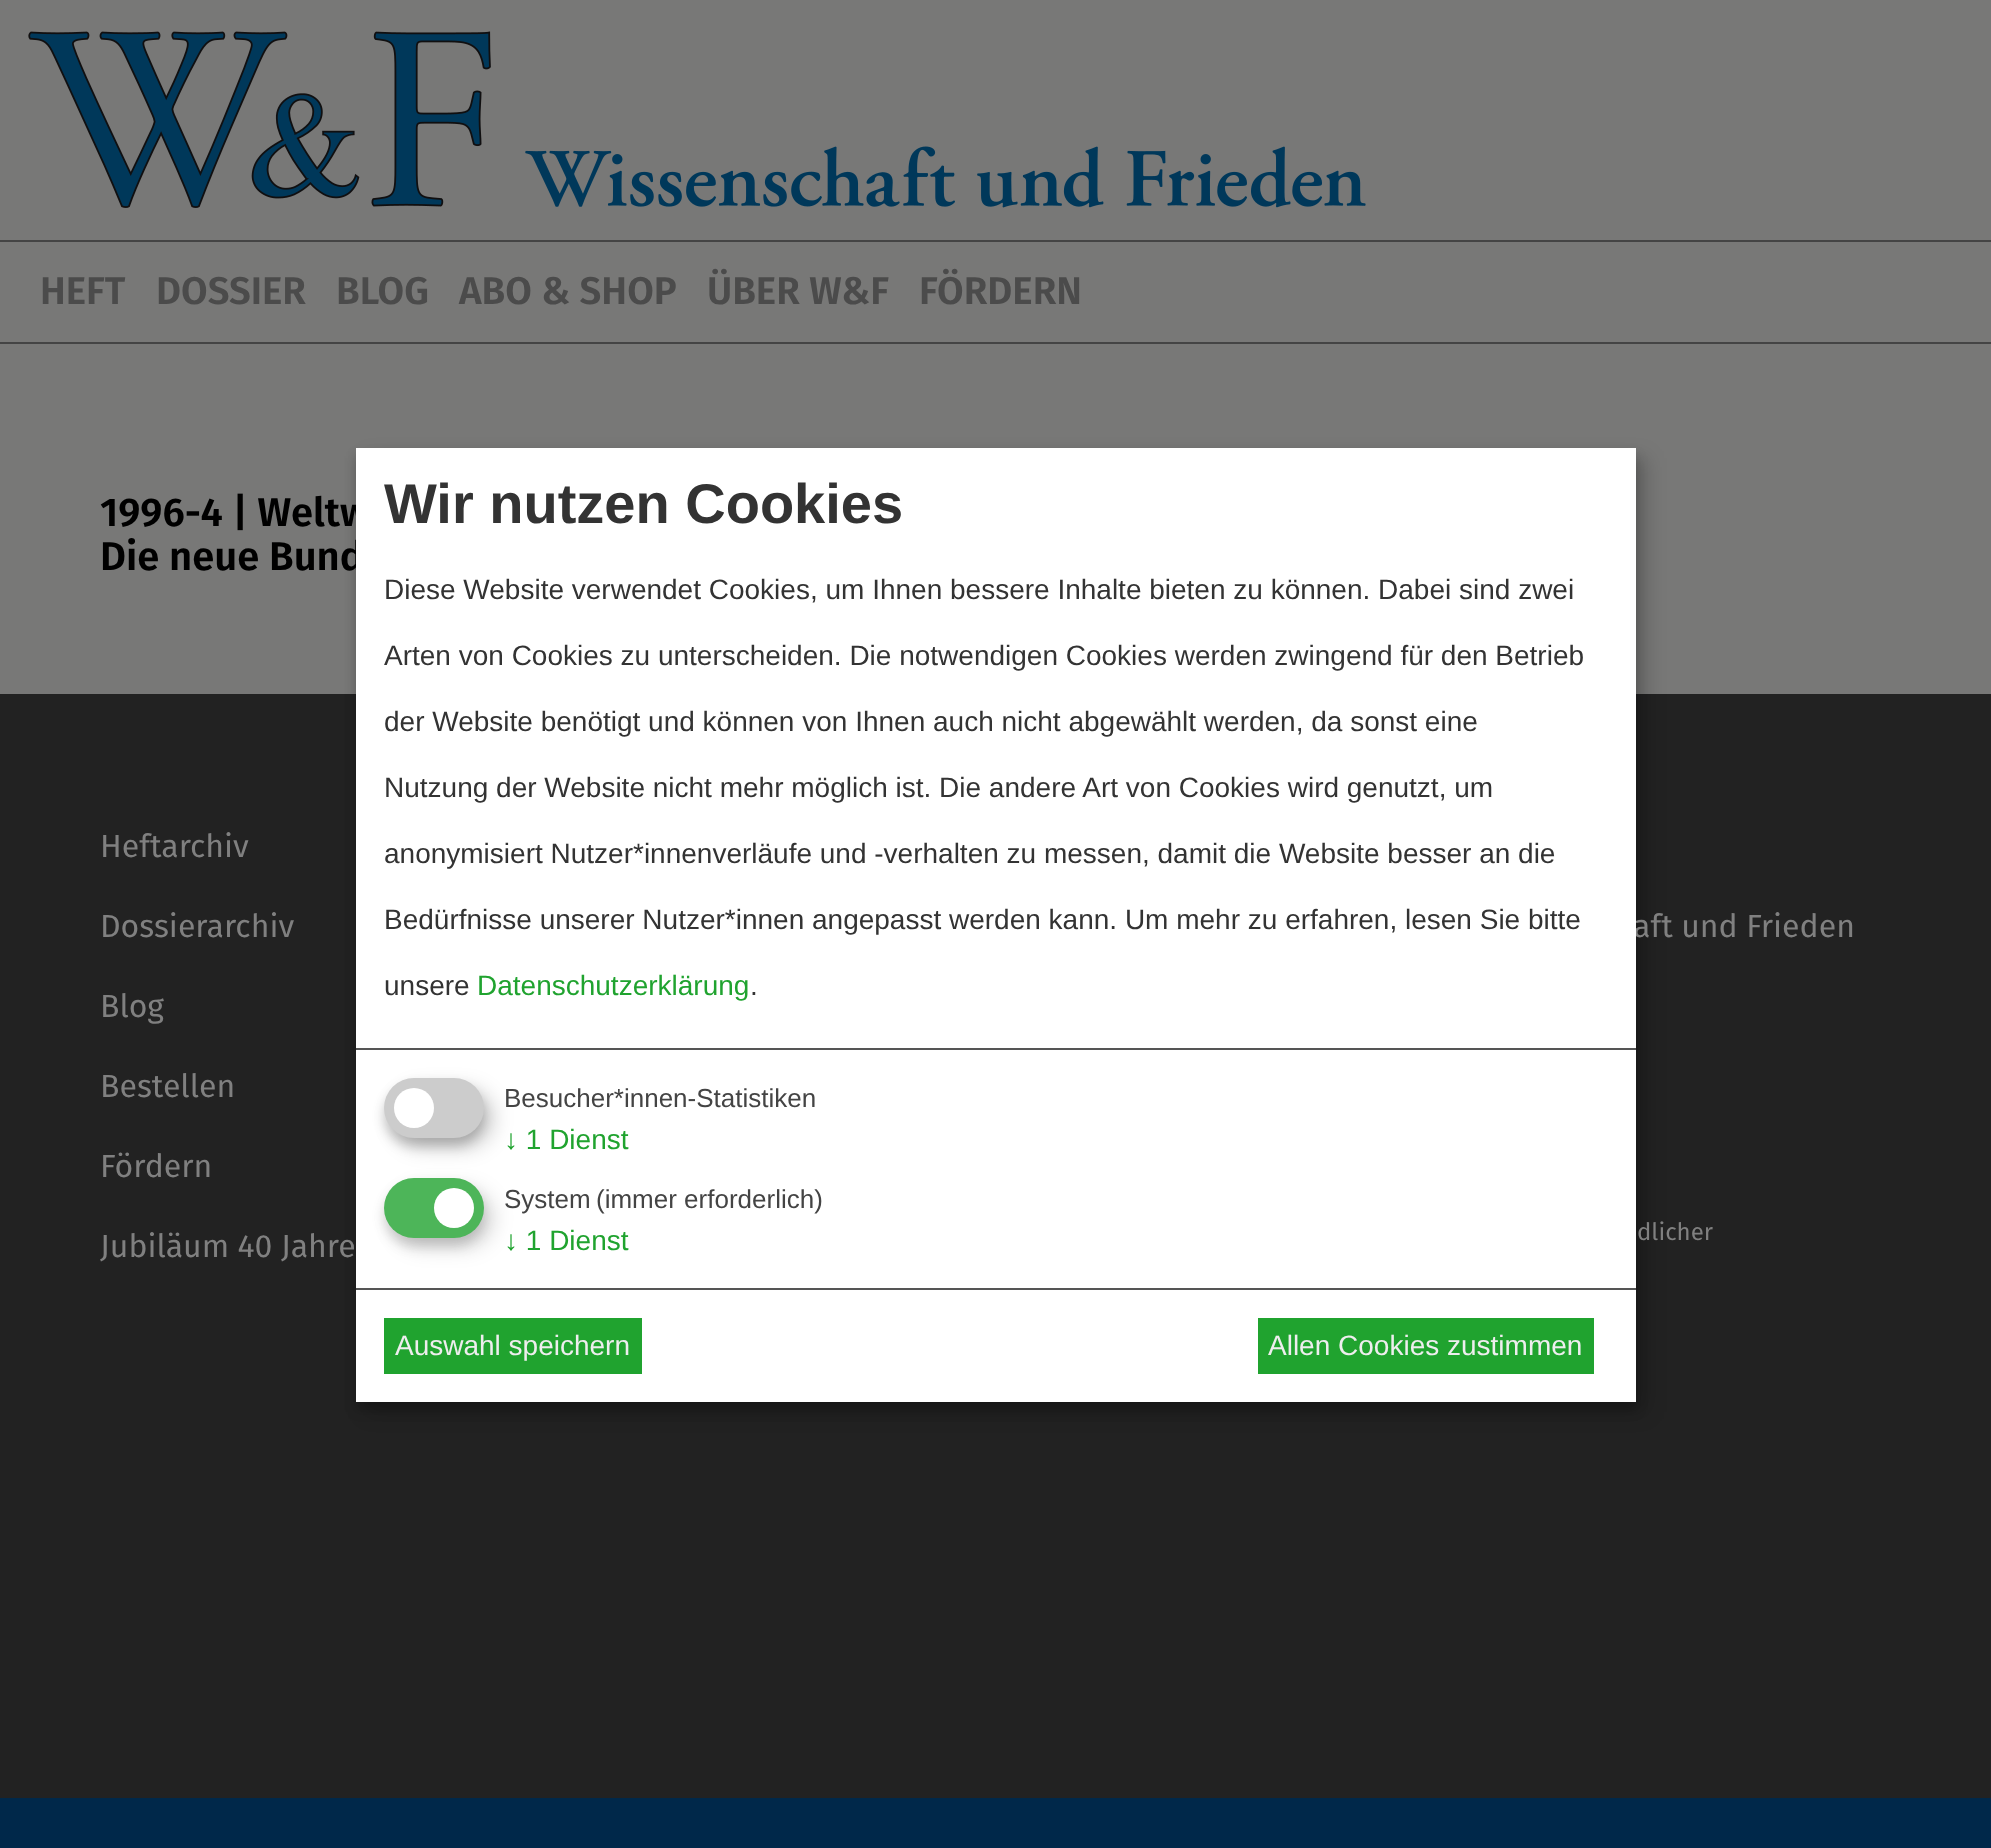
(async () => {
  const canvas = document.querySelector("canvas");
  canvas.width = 1991;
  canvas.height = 1848;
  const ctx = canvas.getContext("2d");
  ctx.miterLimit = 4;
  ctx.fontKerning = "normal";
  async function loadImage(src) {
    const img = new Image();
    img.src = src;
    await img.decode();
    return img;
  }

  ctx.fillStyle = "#787877";
  ctx.fillRect(0, 0, 1991, 1848);
  ctx.drawImage(await loadImage("img/1.png"), 28, 31, 1338, 177);
  for (const [x, y, w, h, color] of [
    [0, 240, 1991, 2, "#444444"],
    [0, 342, 1991, 2, "#444444"],
    [0, 694, 1991, 1104, "#222222"],
    [0, 1798, 1991, 50, "#00284a"],
  ]) {
    ctx.fillStyle = color;
    ctx.fillRect(x, y, w, h);
  }
  ctx.fillStyle = "rgba(0, 0, 0, 0.19)";
  ctx.filter = "blur(10px)";
  ctx.beginPath();
  ctx.rect(366, 458, 1280, 954);
  ctx.fill();
  ctx.filter = "none";
  ctx.fillStyle = "rgba(0, 0, 0, 0.2)";
  ctx.filter = "blur(6px)";
  ctx.beginPath();
  ctx.rect(356, 456, 1280, 954);
  ctx.fill();
  ctx.filter = "none";
  ctx.font = "600 38.5px Fira Sans";
  ctx.fillStyle = "#4b4b4b";
  for (const [text, x, y] of [
    ["HEFT", 40, 304],
    ["DOSSIER", 156, 304],
    ["BLOG", 336, 304],
    ["ABO & SHOP", 459, 304],
    ["ÜBER W&F", 707, 304],
    ["FÖRDERN", 919, 304],
  ]) {
    ctx.fillText(text, x, y);
  }
  ctx.font = "600 40px Fira Sans";
  ctx.fillStyle = "#000000";
  ctx.fillText("1996-4 | Weltw", 100, 526);
  ctx.fillText("Die neue Bund", 100, 570);
  ctx.font = "32px Fira Sans";
  ctx.fillStyle = "#808080";
  for (const [text, x, y] of [
    ["Heftarchiv", 100, 857],
    ["Dossierarchiv", 100, 937],
    ["Blog", 100, 1017],
    ["Bestellen", 100, 1097],
    ["Fördern", 100, 1177],
    ["Jubiläum 40 Jahre", 100, 1257],
    ["aft und Frieden", 1633, 937],
  ]) {
    ctx.fillText(text, x, y);
  }
  ctx.font = "24px Fira Sans";
  ctx.fillText("dlicher", 1637, 1240);
  ctx.fillStyle = "#ffffff";
  ctx.fillRect(356, 448, 1280, 954);
  ctx.fillStyle = "#555555";
  ctx.fillRect(356, 1048, 1280, 2);
  ctx.font = "bold 56px Liberation Sans";
  ctx.fillStyle = "#333333";
  ctx.fillText("Wir nutzen Cookies", 384, 523);
  ctx.font = "28px Liberation Sans";
  for (const [text, x, y] of [
    ["Diese Website verwendet Cookies, um Ihnen bessere Inhalte bieten zu können. Dabei sind zwei", 384, 599],
    ["Arten von Cookies zu unterscheiden. Die notwendigen Cookies werden zwingend für den Betrieb", 384, 665],
    ["der Website benötigt und können von Ihnen auch nicht abgewählt werden, da sonst eine", 384, 731],
    ["Nutzung der Website nicht mehr möglich ist. Die andere Art von Cookies wird genutzt, um", 384, 797],
    ["anonymisiert Nutzer*innenverläufe und -verhalten zu messen, damit die Website besser an die", 384, 863],
    ["Bedürfnisse unserer Nutzer*innen angepasst werden kann. Um mehr zu erfahren, lesen Sie bitte", 384, 929],
    ["unsere", 384, 995],
  ]) {
    ctx.fillText(text, x, y);
  }
  ctx.fillStyle = "#20a32f";
  ctx.fillText("Datenschutzerklärung", 477, 995);
  ctx.fillStyle = "#333333";
  ctx.fillText(".", 750, 995);
  ctx.fillStyle = "rgba(0, 0, 0, 0.19)";
  ctx.filter = "blur(10px)";
  ctx.beginPath();
  ctx.roundRect(394, 1088, 100, 60, 30);
  ctx.fill();
  ctx.filter = "none";
  ctx.fillStyle = "rgba(0, 0, 0, 0.2)";
  ctx.filter = "blur(6px)";
  ctx.beginPath();
  ctx.roundRect(384, 1086, 100, 60, 30);
  ctx.fill();
  ctx.filter = "none";
  ctx.fillStyle = "#cccccc";
  ctx.beginPath();
  ctx.roundRect(384, 1078, 100, 60, 30);
  ctx.fill();
  ctx.fillStyle = "#ffffff";
  ctx.beginPath();
  ctx.arc(414, 1108, 20, 0, Math.PI * 2);
  ctx.fill();
  ctx.font = "26px Liberation Sans";
  ctx.fillStyle = "#444444";
  ctx.fillText("Besucher*innen-Statistiken", 504, 1107);
  ctx.font = "28px Liberation Sans";
  ctx.fillStyle = "#20a32f";
  ctx.fillText("↓ 1 Dienst", 504, 1149);
  ctx.fillStyle = "rgba(0, 0, 0, 0.15)";
  ctx.filter = "blur(10px)";
  ctx.beginPath();
  ctx.roundRect(394, 1188, 100, 60, 30);
  ctx.fill();
  ctx.filter = "none";
  ctx.fillStyle = "rgba(51, 51, 51, 0.2)";
  ctx.filter = "blur(6px)";
  ctx.beginPath();
  ctx.roundRect(384, 1186, 100, 60, 30);
  ctx.fill();
  ctx.filter = "none";
  ctx.fillStyle = "#4db559";
  ctx.beginPath();
  ctx.roundRect(384, 1178, 100, 60, 30);
  ctx.fill();
  ctx.fillStyle = "#ffffff";
  ctx.beginPath();
  ctx.arc(454, 1208, 20, 0, Math.PI * 2);
  ctx.fill();
  ctx.font = "26px Liberation Sans";
  ctx.fillStyle = "#444444";
  ctx.fillText("System", 504, 1208);
  ctx.fillText("(immer erforderlich)", 596, 1208);
  ctx.font = "28px Liberation Sans";
  ctx.fillStyle = "#20a32f";
  ctx.fillText("↓ 1 Dienst", 504, 1250);
  ctx.fillStyle = "#555555";
  ctx.fillRect(356, 1288, 1280, 2);
  ctx.fillStyle = "#20a32f";
  ctx.fillRect(384, 1318, 258, 56);
  ctx.fillStyle = "#eeeeee";
  ctx.fillText("Auswahl speichern", 395, 1355);
  ctx.fillStyle = "#20a32f";
  ctx.fillRect(1258, 1318, 336, 56);
  ctx.fillStyle = "#eeeeee";
  ctx.fillText("Allen Cookies zustimmen", 1268, 1355);
})();
